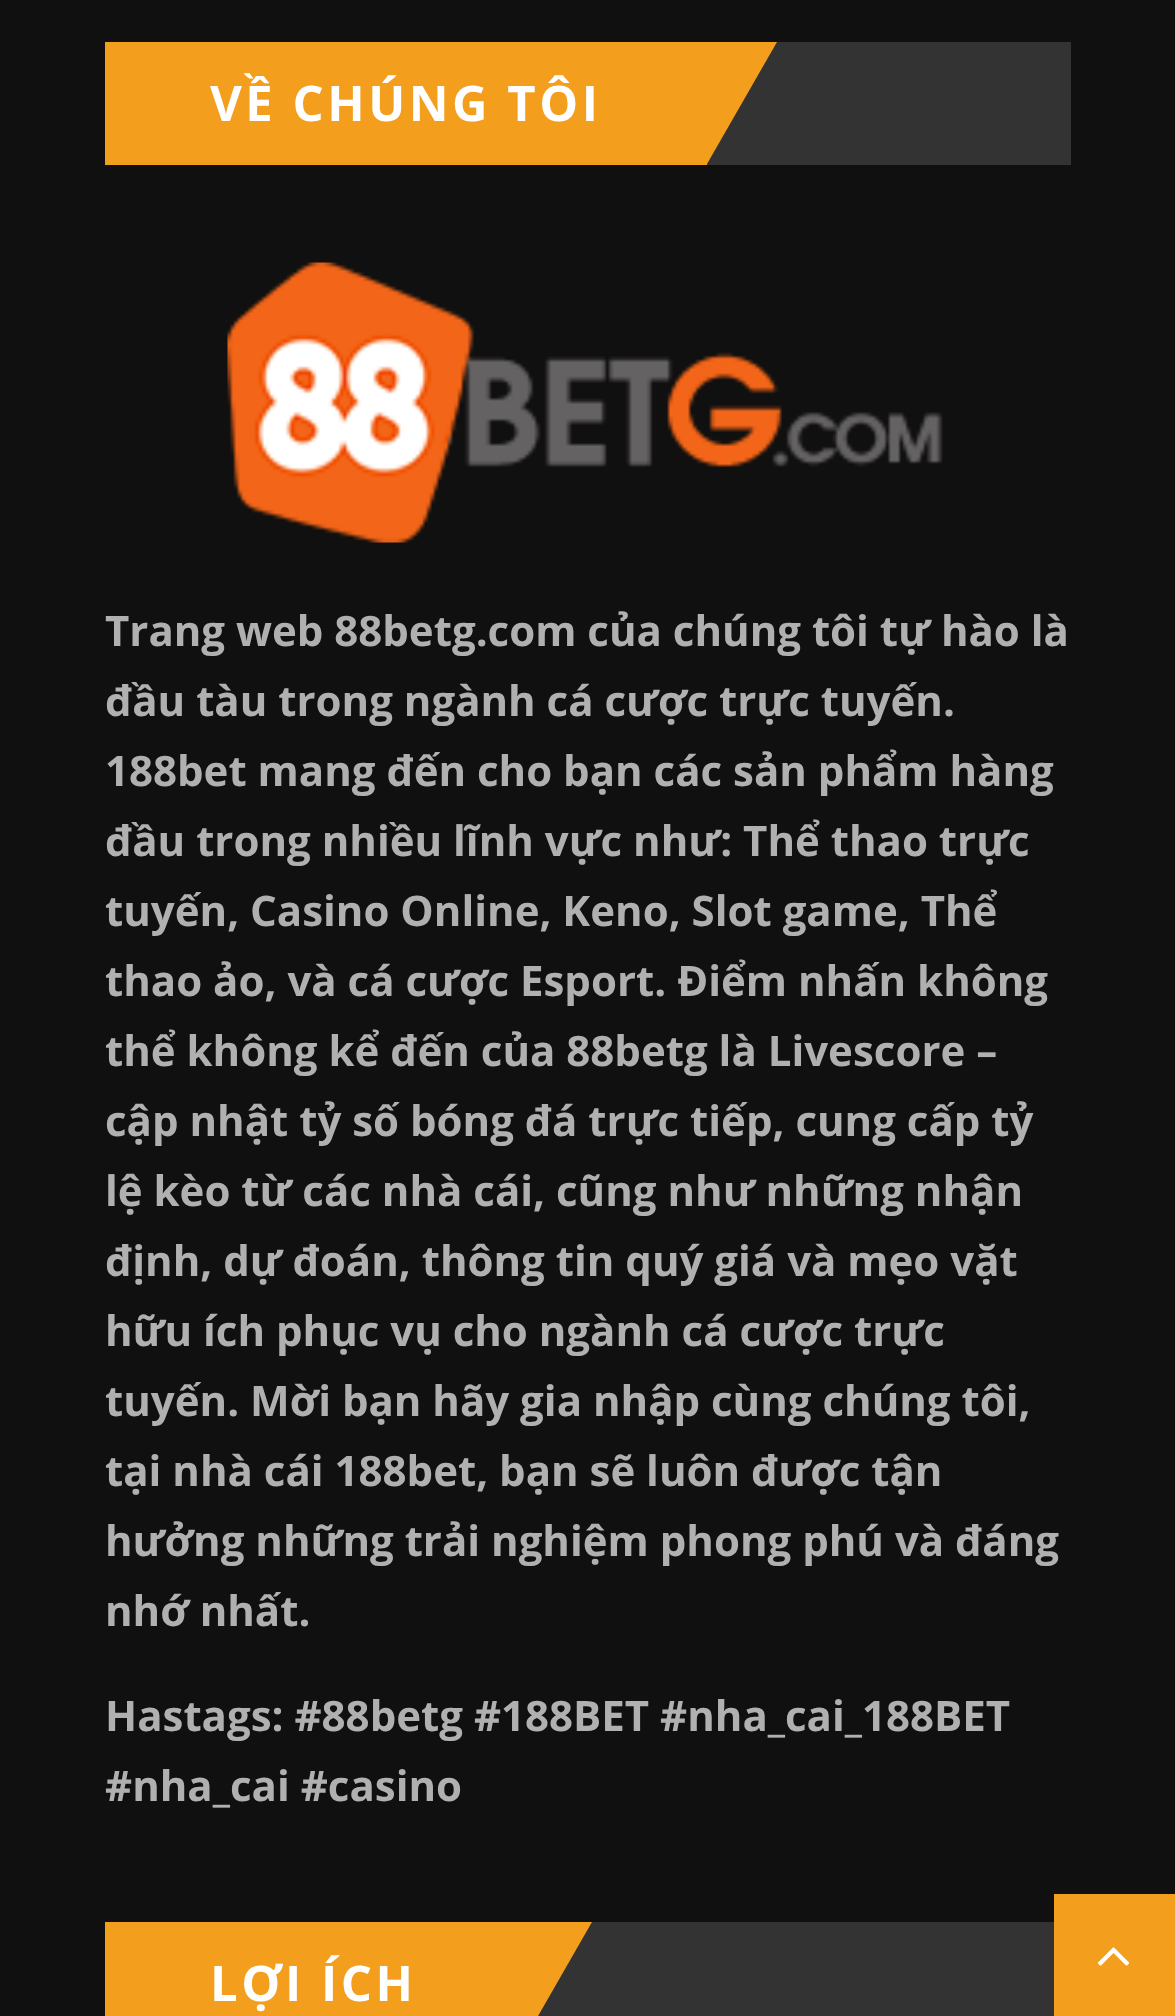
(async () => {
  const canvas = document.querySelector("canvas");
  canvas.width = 1175;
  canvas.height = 2016;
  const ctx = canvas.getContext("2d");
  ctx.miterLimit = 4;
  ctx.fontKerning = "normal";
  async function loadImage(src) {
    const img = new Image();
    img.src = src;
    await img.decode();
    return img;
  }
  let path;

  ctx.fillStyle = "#101010";
  ctx.fillRect(0, 0, 1175, 2016);
  ctx.fillStyle = "#343334";
  ctx.fillRect(707, 42, 364, 123);
  ctx.fillStyle = "#f49e1d";
  ctx.fillRect(105, 42, 602, 123);
  path = new Path2D("M707 42H777L707 164Z");
  ctx.fill(path);
  ctx.drawImage(await loadImage("img/1.png"), 227, 262, 716, 281);
  ctx.fillStyle = "#343334";
  ctx.fillRect(538, 1922, 516, 94);
  ctx.fillStyle = "#f49e1d";
  ctx.fillRect(105, 1922, 417, 94);
  path = new Path2D("M522 1922H592L522 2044Z");
  ctx.fill(path);
  ctx.fillRect(1054, 1894, 121, 122);
  ctx.drawImage(await loadImage("img/2.png"), 1097, 1947, 32, 19);
  ctx.letterSpacing = "3.5px";
  ctx.font = "bold 49px Open Sans";
  ctx.fillStyle = "#ffffff";
  ctx.fillText("VỀ CHÚNG TÔI", 210, 121);
  ctx.letterSpacing = "0px";
  ctx.font = "bold 42px Open Sans";
  ctx.fillStyle = "#b0b0b0";
  for (const [text, x, y] of [
    ["Trang web 88betg.com của chúng tôi tự hào là", 105, 646],
    ["đầu tàu trong ngành cá cược trực tuyến.", 105, 716],
    ["188bet mang đến cho bạn các sản phẩm hàng", 105, 786],
    ["đầu trong nhiều lĩnh vực như: Thể thao trực", 105, 856],
    ["tuyến, Casino Online, Keno, Slot game, Thể", 105, 926],
    ["thao ảo, và cá cược Esport. Điểm nhấn không", 105, 996],
    ["thể không kể đến của 88betg là Livescore –", 105, 1066],
    ["cập nhật tỷ số bóng đá trực tiếp, cung cấp tỷ", 105, 1136],
    ["lệ kèo từ các nhà cái, cũng như những nhận", 105, 1206],
    ["định, dự đoán, thông tin quý giá và mẹo vặt", 105, 1276],
    ["hữu ích phục vụ cho ngành cá cược trực", 105, 1346],
    ["tuyến. Mời bạn hãy gia nhập cùng chúng tôi,", 105, 1416],
    ["tại nhà cái 188bet, bạn sẽ luôn được tận", 105, 1486],
    ["hưởng những trải nghiệm phong phú và đáng", 105, 1556],
    ["nhớ nhất.", 105, 1626],
    ["Hastags: #88betg #188BET #nha_cai_188BET", 105, 1731],
    ["#nha_cai #casino", 105, 1801],
  ]) {
    ctx.fillText(text, x, y);
  }
  ctx.letterSpacing = "3.5px";
  ctx.font = "bold 49px Open Sans";
  ctx.fillStyle = "#ffffff";
  ctx.fillText("LỢI ÍCH", 210, 2001);
})();
